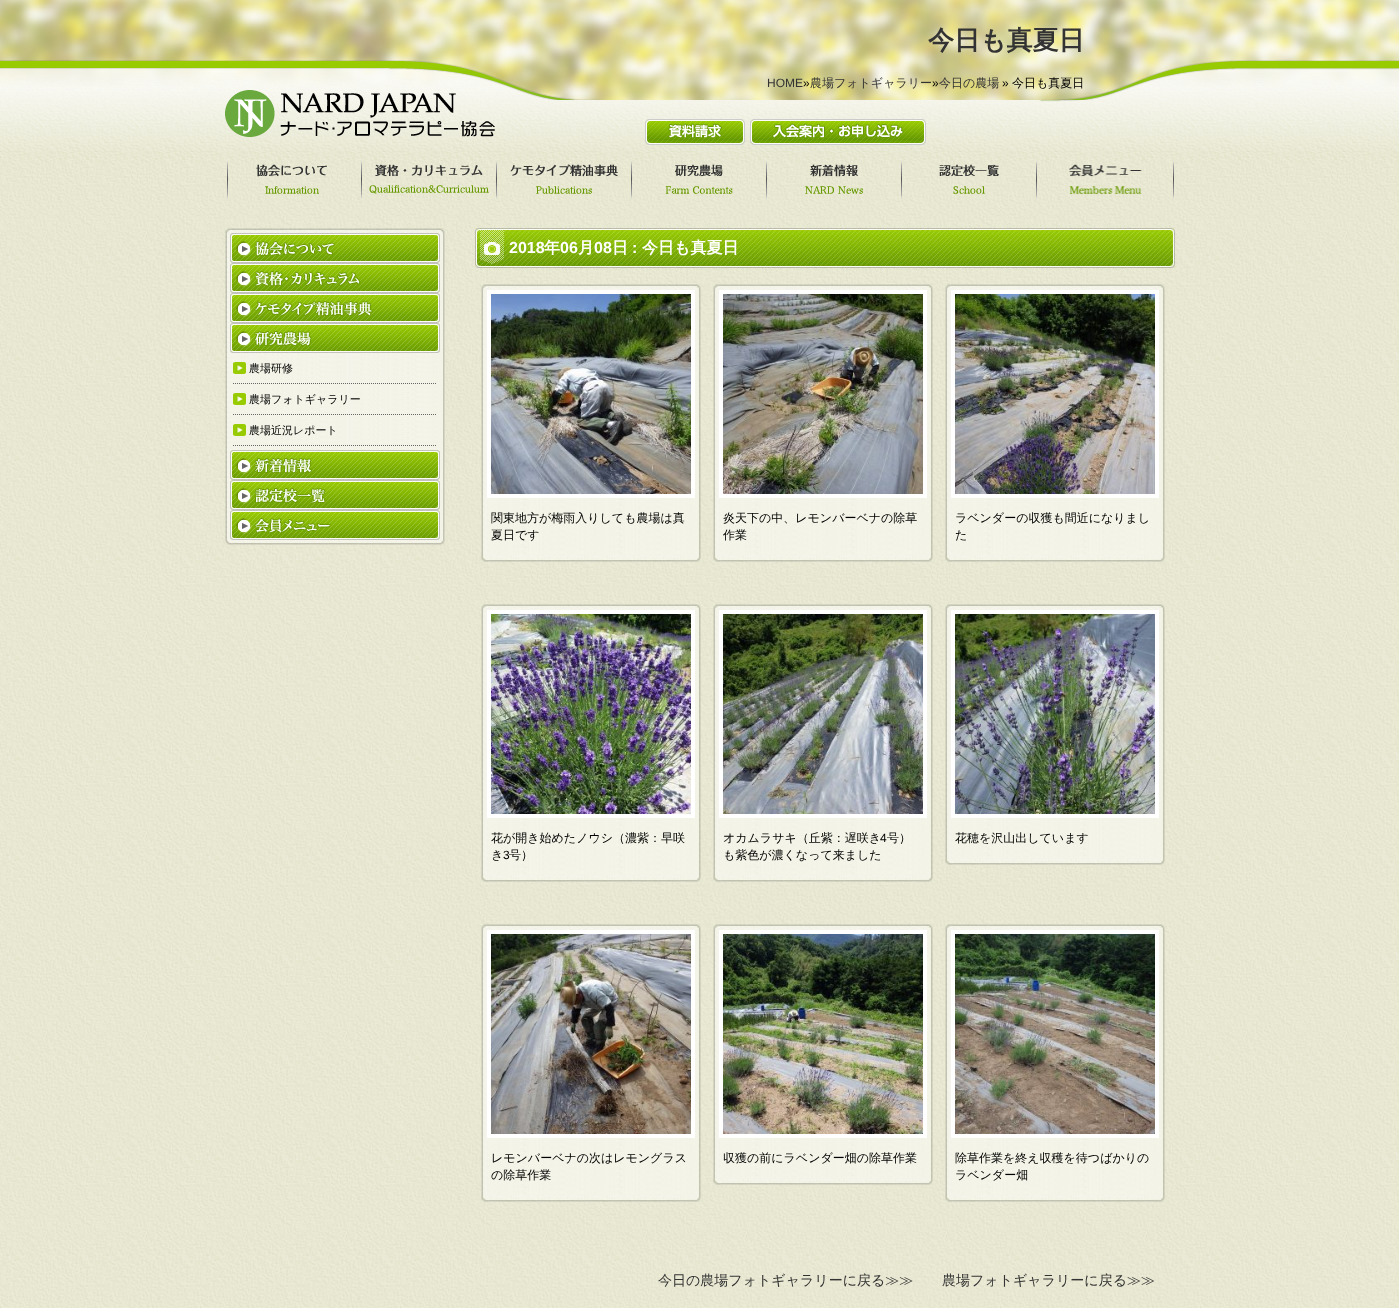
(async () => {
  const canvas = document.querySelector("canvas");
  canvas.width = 1399;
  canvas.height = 1308;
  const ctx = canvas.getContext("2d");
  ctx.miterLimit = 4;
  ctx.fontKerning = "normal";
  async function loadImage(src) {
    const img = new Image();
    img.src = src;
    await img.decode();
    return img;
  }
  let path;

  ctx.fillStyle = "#ffffff";
  ctx.fillRect(0, 0, 1399, 1308);
  ctx.drawImage(await loadImage("img/1.png"), 0, 0, 1399, 100);
  ctx.drawImage(await loadImage("img/2.png"), 0, 60, 1399, 40);
  ctx.drawImage(await loadImage("img/3.png"), 0, 100, 1399, 60);
  ctx.drawImage(await loadImage("img/4.png"), 225, 90, 270, 47);
  ctx.drawImage(await loadImage("img/5.png"), 645, 119, 100, 26);
  ctx.drawImage(await loadImage("img/6.png"), 750, 119, 176, 26);
  ctx.drawImage(await loadImage("img/7.png"), 0, 160, 1399, 1148);
  ctx.drawImage(await loadImage("img/8.png"), 227, 161, 100, 38);
  ctx.drawImage(await loadImage("img/9.png"), 361, 161, 128, 38);
  ctx.drawImage(await loadImage("img/10.png"), 496, 161, 136, 38);
  ctx.drawImage(await loadImage("img/11.png"), 665, 161, 102, 38);
  ctx.drawImage(await loadImage("img/12.png"), 805, 161, 97, 38);
  ctx.drawImage(await loadImage("img/13.png"), 939, 161, 98, 38);
  ctx.drawImage(await loadImage("img/14.png"), 1069, 161, 105, 38);
  ctx.drawImage(await loadImage("img/15.png"), 225, 233, 220, 307);
  ctx.drawImage(await loadImage("img/16.png"), 225, 228, 220, 5);
  ctx.drawImage(await loadImage("img/17.png"), 230, 233, 210, 30);
  ctx.drawImage(await loadImage("img/18.png"), 230, 263, 210, 30);
  ctx.drawImage(await loadImage("img/19.png"), 230, 293, 210, 30);
  ctx.drawImage(await loadImage("img/20.png"), 230, 323, 210, 30);
  ctx.drawImage(await loadImage("img/21.png"), 233, 362, 13, 12);
  path = new Path2D("M233 383.5H437");
  ctx.strokeStyle = "#666666";
  ctx.setLineDash([1, 1]);
  ctx.stroke(path);
  ctx.drawImage(await loadImage("img/22.png"), 233, 393, 13, 12);
  path = new Path2D("M233 414.5H437");
  ctx.stroke(path);
  ctx.drawImage(await loadImage("img/23.png"), 233, 424, 13, 12);
  path = new Path2D("M233 445.5H437");
  ctx.stroke(path);
  ctx.drawImage(await loadImage("img/24.png"), 230, 450, 210, 30);
  ctx.drawImage(await loadImage("img/25.png"), 230, 480, 210, 30);
  ctx.drawImage(await loadImage("img/26.png"), 230, 510, 210, 30);
  ctx.drawImage(await loadImage("img/27.png"), 225, 540, 220, 5);
  ctx.drawImage(await loadImage("img/28.png"), 475, 228, 700, 40);
  ctx.drawImage(await loadImage("img/29.png"), 481, 284, 220, 6);
  ctx.drawImage(await loadImage("img/30.png"), 481, 290, 220, 266);
  ctx.strokeStyle = "#ffffff";
  ctx.lineWidth = 4;
  ctx.setLineDash([]);
  ctx.strokeRect(489, 292, 204, 204);
  ctx.drawImage(await loadImage("img/31.png"), 491, 294, 200, 200);
  ctx.drawImage(await loadImage("img/32.png"), 481, 556, 220, 6);
  ctx.drawImage(await loadImage("img/29.png"), 713, 284, 220, 6);
  ctx.drawImage(await loadImage("img/30.png"), 713, 290, 220, 266);
  ctx.strokeRect(721, 292, 204, 204);
  ctx.drawImage(await loadImage("img/33.png"), 723, 294, 200, 200);
  ctx.drawImage(await loadImage("img/32.png"), 713, 556, 220, 6);
  ctx.drawImage(await loadImage("img/29.png"), 945, 284, 220, 6);
  ctx.drawImage(await loadImage("img/30.png"), 945, 290, 220, 266);
  ctx.strokeRect(953, 292, 204, 204);
  ctx.drawImage(await loadImage("img/34.png"), 955, 294, 200, 200);
  ctx.drawImage(await loadImage("img/32.png"), 945, 556, 220, 6);
  ctx.drawImage(await loadImage("img/29.png"), 481, 604, 220, 6);
  ctx.drawImage(await loadImage("img/30.png"), 481, 610, 220, 266);
  ctx.strokeRect(489, 612, 204, 204);
  ctx.drawImage(await loadImage("img/35.png"), 491, 614, 200, 200);
  ctx.drawImage(await loadImage("img/32.png"), 481, 876, 220, 6);
  ctx.drawImage(await loadImage("img/29.png"), 713, 604, 220, 6);
  ctx.drawImage(await loadImage("img/30.png"), 713, 610, 220, 266);
  ctx.strokeRect(721, 612, 204, 204);
  ctx.drawImage(await loadImage("img/36.png"), 723, 614, 200, 200);
  ctx.drawImage(await loadImage("img/32.png"), 713, 876, 220, 6);
  ctx.drawImage(await loadImage("img/29.png"), 945, 604, 220, 6);
  ctx.drawImage(await loadImage("img/37.png"), 945, 610, 220, 249);
  ctx.strokeRect(953, 612, 204, 204);
  ctx.drawImage(await loadImage("img/38.png"), 955, 614, 200, 200);
  ctx.drawImage(await loadImage("img/32.png"), 945, 859, 220, 6);
  ctx.drawImage(await loadImage("img/29.png"), 481, 924, 220, 6);
  ctx.drawImage(await loadImage("img/30.png"), 481, 930, 220, 266);
  ctx.strokeRect(489, 932, 204, 204);
  ctx.drawImage(await loadImage("img/39.png"), 491, 934, 200, 200);
  ctx.drawImage(await loadImage("img/32.png"), 481, 1196, 220, 6);
  ctx.drawImage(await loadImage("img/29.png"), 713, 924, 220, 6);
  ctx.drawImage(await loadImage("img/37.png"), 713, 930, 220, 249);
  ctx.strokeRect(721, 932, 204, 204);
  ctx.drawImage(await loadImage("img/40.png"), 723, 934, 200, 200);
  ctx.drawImage(await loadImage("img/32.png"), 713, 1179, 220, 6);
  ctx.drawImage(await loadImage("img/29.png"), 945, 924, 220, 6);
  ctx.drawImage(await loadImage("img/30.png"), 945, 930, 220, 266);
  ctx.strokeRect(953, 932, 204, 204);
  ctx.drawImage(await loadImage("img/41.png"), 955, 934, 200, 200);
  ctx.drawImage(await loadImage("img/32.png"), 945, 1196, 220, 6);
  ctx.font = "bold 26px WenQuanYi Zen Hei";
  ctx.fillStyle = "#333333";
  ctx.fillText("今日も真夏日", 928, 49);
  ctx.font = "12px Liberation Sans";
  ctx.fillText("HOME", 767, 87);
  ctx.fillStyle = "#000000";
  ctx.fillText("»", 803, 87);
  ctx.font = "500 12px WenQuanYi Zen Hei";
  ctx.fillStyle = "#333333";
  ctx.fillText("農場フォトギャラリー", 810, 87);
  ctx.font = "12px Liberation Sans";
  ctx.fillStyle = "#000000";
  ctx.fillText("»", 932, 87);
  ctx.font = "500 12px WenQuanYi Zen Hei";
  ctx.fillStyle = "#333333";
  ctx.fillText("今日の農場", 939, 87);
  ctx.font = "12px Liberation Sans";
  ctx.fillStyle = "#000000";
  ctx.fillText("»", 1002, 87);
  ctx.font = "500 12px WenQuanYi Zen Hei";
  ctx.fillText("今日も真夏日", 1012, 87);
  ctx.font = "500 11px WenQuanYi Zen Hei";
  for (const [text, x, y] of [
    ["農場研修", 249, 372],
    ["農場フォトギャラリー", 249, 403],
    ["農場近況レポート", 249, 434],
  ]) {
    ctx.fillText(text, x, y);
  }
  ctx.font = "bold 16px Liberation Sans";
  ctx.fillStyle = "#ffffff";
  ctx.fillText("2018", 509, 253);
  ctx.font = "bold 16px WenQuanYi Zen Hei";
  ctx.fillText("年", 544, 253);
  ctx.font = "bold 16px Liberation Sans";
  ctx.fillText("06", 560, 253);
  ctx.font = "bold 16px WenQuanYi Zen Hei";
  ctx.fillText("月", 578, 253);
  ctx.font = "bold 16px Liberation Sans";
  ctx.fillText("08", 594, 253);
  ctx.font = "bold 16px WenQuanYi Zen Hei";
  ctx.fillText("日", 612, 253);
  ctx.font = "bold 16px Liberation Sans";
  ctx.fillText(":", 632, 253);
  ctx.font = "bold 16px WenQuanYi Zen Hei";
  ctx.fillText("今日も真夏日", 642, 253);
  ctx.font = "500 12px WenQuanYi Zen Hei";
  ctx.fillStyle = "#000000";
  for (const [text, x, y] of [
    ["関東地方が梅雨入りしても農場は真", 491, 522],
    ["夏日です", 491, 539],
    ["炎天下の中、レモンバーベナの除草", 723, 522],
    ["作業", 723, 539],
    ["ラベンダーの収獲も間近になりまし", 955, 522],
    ["た", 955, 539],
    ["花が開き始めたノウシ（濃紫：早咲", 491, 842],
    ["き", 491, 859],
  ]) {
    ctx.fillText(text, x, y);
  }
  ctx.font = "12px Liberation Sans";
  ctx.fillText("3", 503, 859);
  ctx.font = "500 12px WenQuanYi Zen Hei";
  ctx.fillText("号）", 509, 859);
  ctx.fillText("オカムラサキ（丘紫：遅咲き", 723, 842);
  ctx.font = "12px Liberation Sans";
  ctx.fillText("4", 880, 842);
  ctx.font = "500 12px WenQuanYi Zen Hei";
  for (const [text, x, y] of [
    ["号）", 887, 842],
    ["も紫色が濃くなって来ました", 723, 859],
    ["花穂を沢山出しています", 955, 842],
    ["レモンバーベナの次はレモングラス", 491, 1162],
    ["の除草作業", 491, 1179],
    ["収獲の前にラベンダー畑の除草作業", 723, 1162],
    ["除草作業を終え収穫を待つばかりの", 955, 1162],
    ["ラベンダー畑", 955, 1179],
  ]) {
    ctx.fillText(text, x, y);
  }
  ctx.font = "500 14px WenQuanYi Zen Hei";
  ctx.fillStyle = "#333333";
  ctx.fillText("今日の農場フォトギャラリーに戻る≫≫", 658, 1285);
  ctx.fillText("農場フォトギャラリーに戻る≫≫", 942, 1285);
})();
